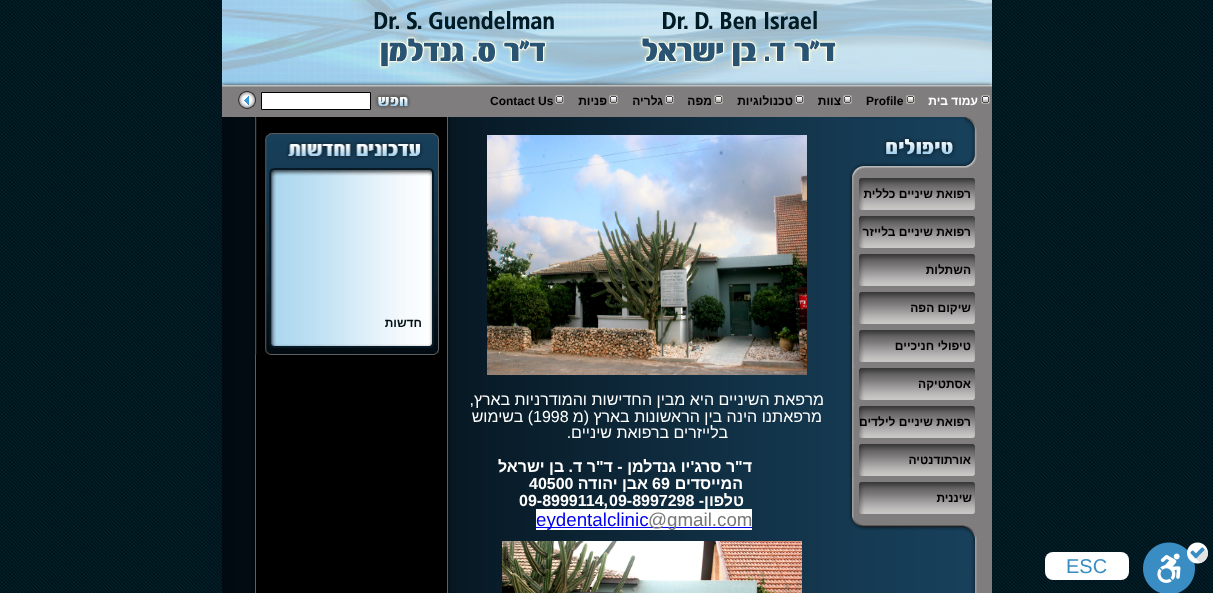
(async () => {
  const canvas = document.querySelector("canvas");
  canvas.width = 1213;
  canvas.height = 593;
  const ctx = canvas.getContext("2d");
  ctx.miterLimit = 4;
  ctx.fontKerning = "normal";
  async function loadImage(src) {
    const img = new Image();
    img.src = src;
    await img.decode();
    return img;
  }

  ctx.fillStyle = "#ffffff";
  ctx.fillRect(0, 0, 1213, 593);
  ctx.drawImage(await loadImage("img/1.png"), 0, 0, 1213, 593);
  ctx.drawImage(await loadImage("img/2.png"), 222, 0, 770, 85);
  ctx.drawImage(await loadImage("img/3.png"), 412, 85, 580, 32);
  ctx.drawImage(await loadImage("img/4.png"), 981, 95, 9, 9);
  ctx.drawImage(await loadImage("img/5.png"), 906, 95, 9, 9);
  ctx.drawImage(await loadImage("img/6.png"), 843, 95, 9, 9);
  ctx.drawImage(await loadImage("img/4.png"), 795, 95, 9, 9);
  ctx.drawImage(await loadImage("img/7.png"), 714, 95, 9, 9);
  ctx.drawImage(await loadImage("img/4.png"), 665, 95, 9, 9);
  ctx.drawImage(await loadImage("img/4.png"), 609, 95, 9, 9);
  ctx.drawImage(await loadImage("img/6.png"), 555, 95, 9, 9);
  ctx.drawImage(await loadImage("img/8.png"), 222, 85, 190, 32);
  ctx.beginPath();
  ctx.rect(261.5, 92.5, 109, 17);
  ctx.fill();
  ctx.strokeStyle = "#000000";
  ctx.stroke();
  ctx.drawImage(await loadImage("img/9.png"), 238, 91, 18, 18);
  ctx.drawImage(await loadImage("img/10.png"), 847, 117, 145, 476);
  ctx.drawImage(await loadImage("img/11.png"), 849, 175, 128, 38);
  ctx.drawImage(await loadImage("img/11.png"), 849, 213, 128, 38);
  ctx.drawImage(await loadImage("img/11.png"), 849, 251, 128, 38);
  ctx.drawImage(await loadImage("img/11.png"), 849, 289, 128, 38);
  ctx.drawImage(await loadImage("img/11.png"), 849, 327, 128, 38);
  ctx.drawImage(await loadImage("img/11.png"), 849, 365, 128, 38);
  ctx.drawImage(await loadImage("img/11.png"), 849, 403, 128, 38);
  ctx.drawImage(await loadImage("img/11.png"), 849, 441, 128, 38);
  ctx.drawImage(await loadImage("img/11.png"), 849, 479, 128, 38);
  ctx.drawImage(await loadImage("img/12.png"), 849, 517, 128, 20);
  ctx.drawImage(await loadImage("img/13.png"), 222, 117, 226, 476);
  ctx.drawImage(await loadImage("img/14.png"), 255, 117, 184, 238);
  ctx.drawImage(await loadImage("img/15.png"), 448, 117, 399, 476);
  ctx.drawImage(await loadImage("img/16.png"), 487, 135, 320, 240);
  ctx.fillRect(536, 509, 216, 21);
  ctx.fillStyle = "#0000ee";
  ctx.fillRect(536, 527, 216, 1);
  ctx.drawImage(await loadImage("img/17.png"), 502, 541, 300, 52);
  ctx.drawImage(await loadImage("img/18.png"), 1143, 542, 66, 51);
  ctx.fillStyle = "#ffffff";
  ctx.beginPath();
  ctx.roundRect(1045, 552, 84, 28, 8);
  ctx.fill();
  ctx.direction = "rtl";
  ctx.font = "bold 12px Liberation Sans";
  ctx.fillText("עמוד בית", 978, 105);
  ctx.direction = "ltr";
  ctx.fillStyle = "#000000";
  ctx.fillText("Profile", 866, 105);
  ctx.direction = "rtl";
  for (const [text, x, y] of [
    ["צוות", 841, 105],
    ["טכנולוגיות", 793, 105],
    ["מפה", 712, 105],
    ["גלריה", 663, 105],
    ["פניות", 607, 105],
  ]) {
    ctx.fillText(text, x, y);
  }
  ctx.direction = "ltr";
  ctx.fillText("Contact Us", 490, 105);
  ctx.direction = "rtl";
  for (const [text, x, y] of [
    ["רפואת שיניים כללית", 971, 198],
    ["רפואת שיניים בלייזר", 971, 236],
    ["השתלות", 971, 274],
    ["שיקום הפה", 971, 312],
    ["טיפולי חניכיים", 971, 350],
    ["אסתטיקה", 971, 388],
    ["רפואת שיניים לילדים", 971, 426],
    ["אורתודנטיה", 971, 464],
    ["שיננית", 972, 502],
  ]) {
    ctx.fillText(text, x, y);
  }
  ctx.fillStyle = "#001016";
  ctx.fillText("חדשות", 422, 327);
  ctx.font = "16px Liberation Sans";
  ctx.fillStyle = "#ffffff";
  ctx.fillText("מרפאת השיניים היא מבין החדישות והמודרניות בארץ,", 824, 405);
  ctx.fillText("מרפאתנו הינה בין הראשונות בארץ (מ", 822, 422);
  ctx.direction = "ltr";
  ctx.fillText("1998", 533, 422);
  ctx.direction = "rtl";
  ctx.fillText(") בשימוש", 533, 422);
  ctx.fillText("בלייזרים ברפואת שיניים.", 728, 438);
  ctx.font = "bold 16px Liberation Sans";
  ctx.fillText("ד\"ר סרג'יו גנדלמן - ד\"ר ד. בן ישראל", 752, 472);
  ctx.fillText("המייסדים", 743, 489);
  ctx.direction = "ltr";
  ctx.fillText("69", 652, 489);
  ctx.direction = "rtl";
  ctx.fillText("אבן יהודה", 648, 489);
  ctx.direction = "ltr";
  ctx.fillText("40500", 529, 489);
  ctx.direction = "rtl";
  ctx.fillText("טלפון-", 744, 506);
  ctx.direction = "ltr";
  ctx.fillText("09-8997298", 609, 506);
  ctx.fillText("09-8999114,", 519, 506);
  ctx.font = "18.75px Liberation Sans";
  ctx.fillStyle = "#777777";
  ctx.fillText("@gmail.com", 648, 526);
  ctx.fillStyle = "#0000ee";
  ctx.fillText("eydentalclinic", 536, 526);
  ctx.font = "20px Liberation Sans";
  ctx.fillStyle = "#3a8dc2";
  ctx.fillText("ESC", 1066, 573);
})();
